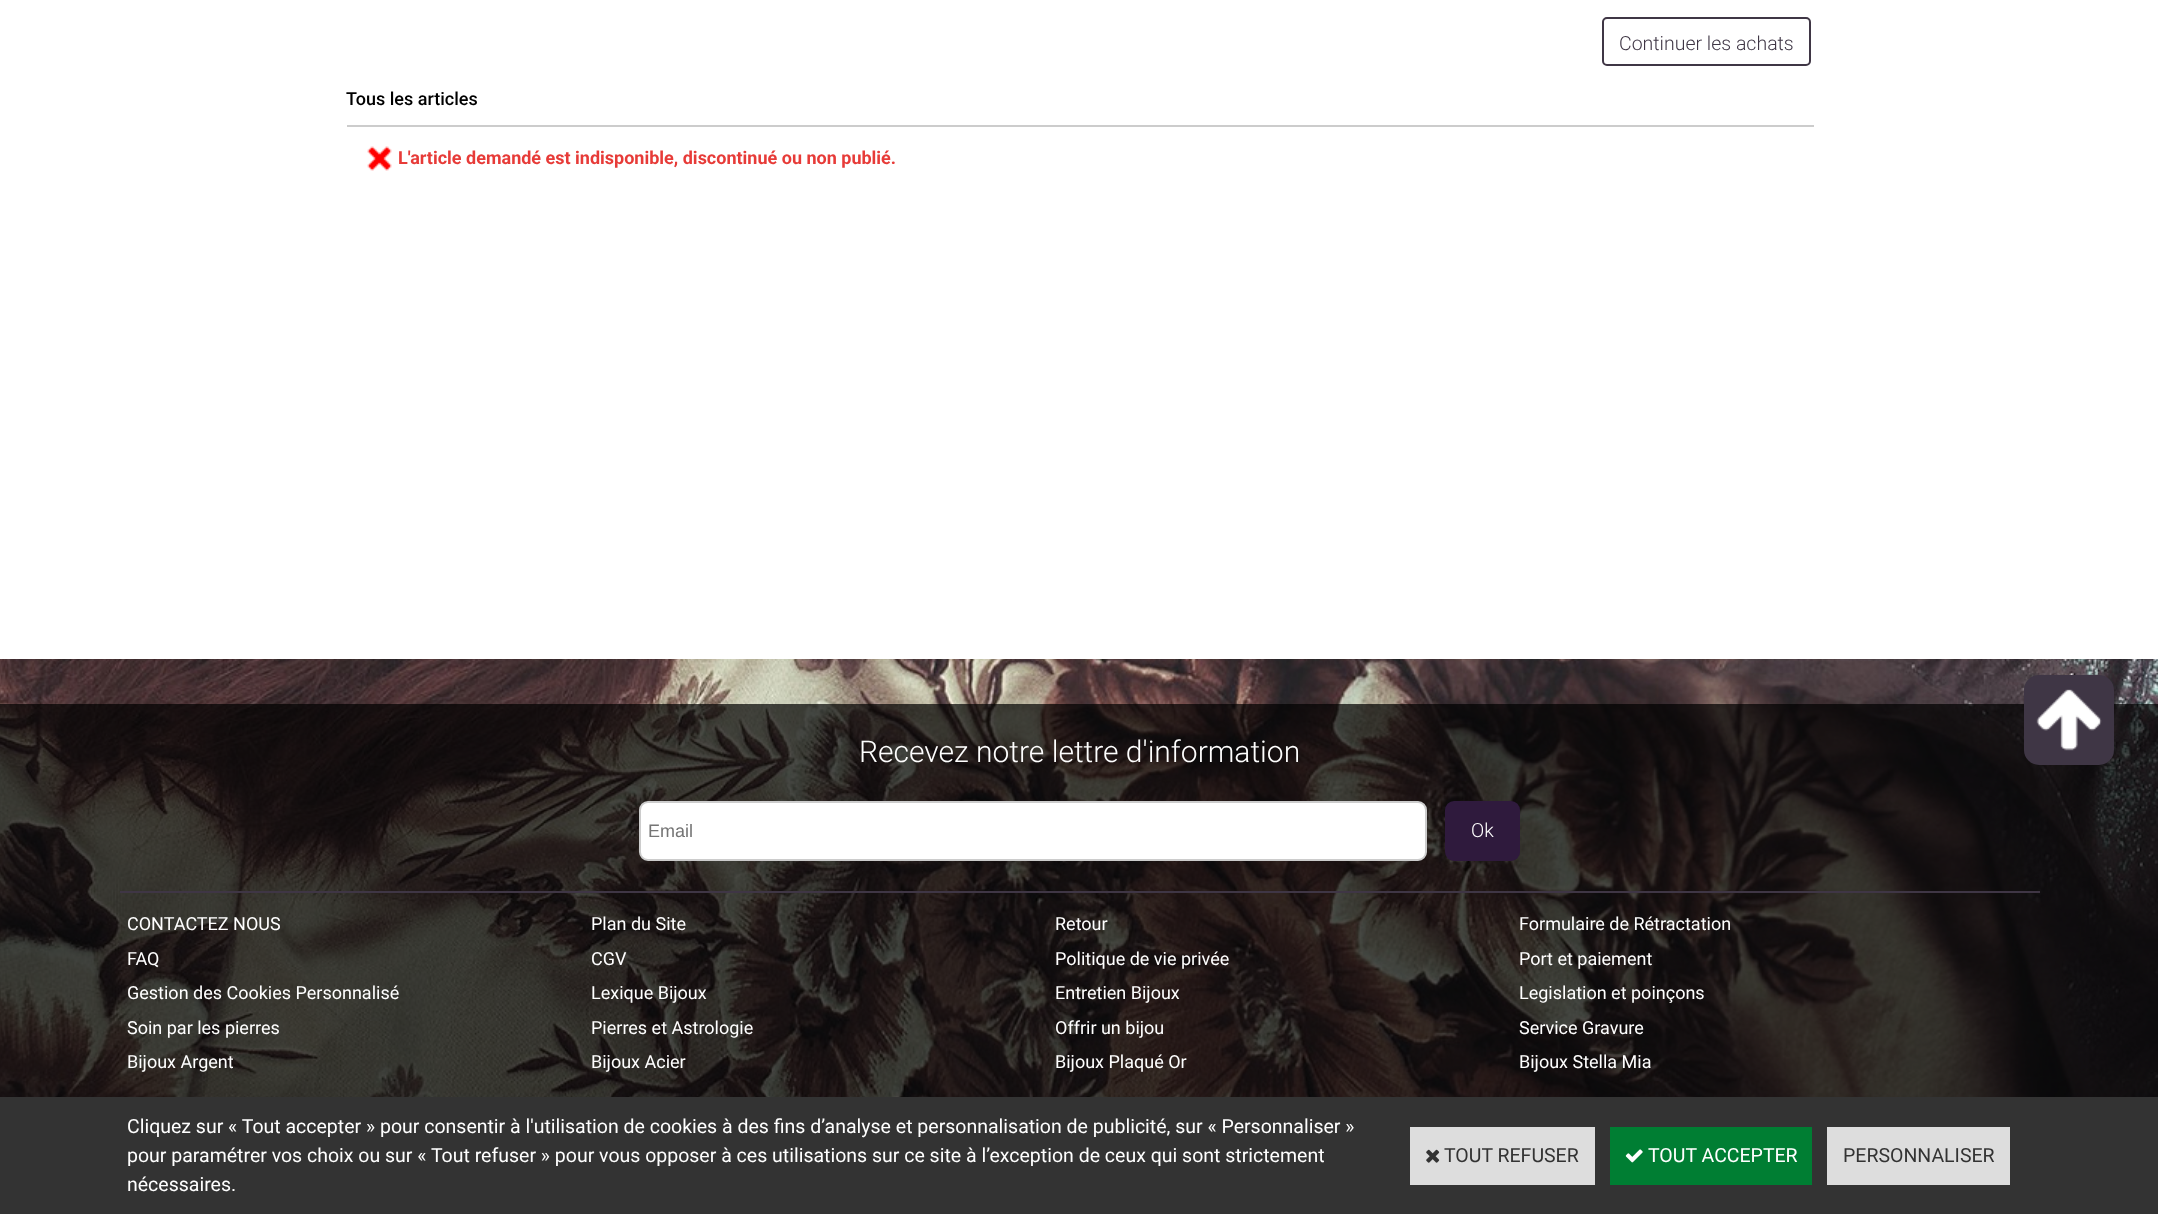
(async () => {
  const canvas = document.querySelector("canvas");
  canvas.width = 2158;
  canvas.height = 1214;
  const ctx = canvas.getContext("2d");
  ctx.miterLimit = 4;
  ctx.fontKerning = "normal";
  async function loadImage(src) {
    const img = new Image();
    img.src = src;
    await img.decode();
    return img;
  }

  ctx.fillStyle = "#ffffff";
  ctx.fillRect(0, 0, 2158, 1214);
  ctx.drawImage(await loadImage("img/1.png"), 0, 659, 2158, 438);
  ctx.beginPath();
  ctx.roundRect(1603, 18, 207, 47, 4);
  ctx.strokeStyle = "#3f3645";
  ctx.lineWidth = 2;
  ctx.stroke();
  ctx.fillStyle = "#cccccc";
  ctx.fillRect(347, 125, 1467, 2);
  ctx.drawImage(await loadImage("img/2.png"), 367, 146, 25, 25);
  ctx.fillStyle = "rgba(0, 0, 0, 0.7)";
  ctx.fillRect(0, 704, 2158, 393);
  ctx.fillStyle = "#3f3645";
  ctx.beginPath();
  ctx.roundRect(2024, 675, 90, 90, 15);
  ctx.fill();
  ctx.drawImage(await loadImage("img/3.png"), 2036, 689, 66, 62);
  ctx.fillRect(120, 891, 1920, 2);
  ctx.fillStyle = "#ffffff";
  ctx.beginPath();
  ctx.roundRect(640, 802, 786, 58, 8);
  ctx.fill();
  ctx.strokeStyle = "#cccccc";
  ctx.stroke();
  ctx.fillStyle = "#2f1a3d";
  ctx.beginPath();
  ctx.roundRect(1445, 801, 75, 60, 9);
  ctx.fill();
  ctx.fillStyle = "#333333";
  ctx.fillRect(0, 1097, 2158, 117);
  ctx.fillStyle = "#dddddd";
  ctx.fillRect(1410, 1127, 185, 58);
  ctx.drawImage(await loadImage("img/4.png"), 1426, 1149, 14, 14);
  ctx.fillStyle = "#007e33";
  ctx.fillRect(1610, 1127, 202, 58);
  ctx.drawImage(await loadImage("img/5.png"), 1625, 1149, 18, 14);
  ctx.fillStyle = "#dddddd";
  ctx.fillRect(1827, 1127, 183, 58);
  ctx.font = "300 19.5px Roboto";
  ctx.fillStyle = "#3f3645";
  ctx.fillText("Continuer les achats", 1619, 50);
  ctx.font = "500 18px Roboto";
  ctx.fillStyle = "#000000";
  ctx.fillText("Tous les articles", 346, 105);
  ctx.font = "bold 18px Roboto";
  ctx.fillStyle = "#e73b38";
  ctx.fillText("L'article demandé est indisponible, discontinué ou non publié.", 398, 164);
  ctx.font = "300 30px Roboto";
  ctx.fillStyle = "#ffffff";
  ctx.fillText("Recevez notre lettre d'information", 859, 762);
  ctx.font = "18px Liberation Sans";
  ctx.fillStyle = "#757575";
  ctx.fillText("Email", 648, 837);
  ctx.font = "300 19.5px Roboto";
  ctx.fillStyle = "#ffffff";
  ctx.fillText("Ok", 1471, 837);
  ctx.font = "18px Roboto";
  for (const [text, x, y] of [
    ["CONTACTEZ NOUS", 127, 930],
    ["Plan du Site", 591, 930],
    ["Retour", 1055, 930],
    ["Formulaire de Rétractation", 1519, 930],
    ["FAQ", 127, 965],
    ["CGV", 591, 965],
    ["Politique de vie privée", 1055, 965],
    ["Port et paiement", 1519, 965],
    ["Gestion des Cookies Personnalisé", 127, 999],
    ["Lexique Bijoux", 591, 999],
    ["Entretien Bijoux", 1055, 999],
    ["Legislation et poinçons", 1519, 999],
    ["Soin par les pierres", 127, 1034],
    ["Pierres et Astrologie", 591, 1034],
    ["Offrir un bijou", 1055, 1034],
    ["Service Gravure", 1519, 1034],
    ["Bijoux Argent", 127, 1068],
    ["Bijoux Acier", 591, 1068],
    ["Bijoux Plaqué Or", 1055, 1068],
    ["Bijoux Stella Mia", 1519, 1068],
  ]) {
    ctx.fillText(text, x, y);
  }
  ctx.font = "19.5px Roboto";
  for (const [text, x, y] of [
    ["Cliquez sur « Tout accepter » pour consentir à l'utilisation de cookies à des fins d’analyse et personnalisation de publicité, sur « Personnaliser »", 127, 1133],
    ["pour paramétrer vos choix ou sur « Tout refuser » pour vous opposer à ces utilisations sur ce site à l’exception de ceux qui sont strictement", 127, 1162],
    ["nécessaires.", 127, 1191],
  ]) {
    ctx.fillText(text, x, y);
  }
  ctx.fillStyle = "#333333";
  ctx.fillText("TOUT REFUSER", 1444, 1162);
  ctx.fillStyle = "#ffffff";
  ctx.fillText("TOUT ACCEPTER", 1648, 1162);
  ctx.fillStyle = "#333333";
  ctx.fillText("PERSONNALISER", 1843, 1162);
})();
